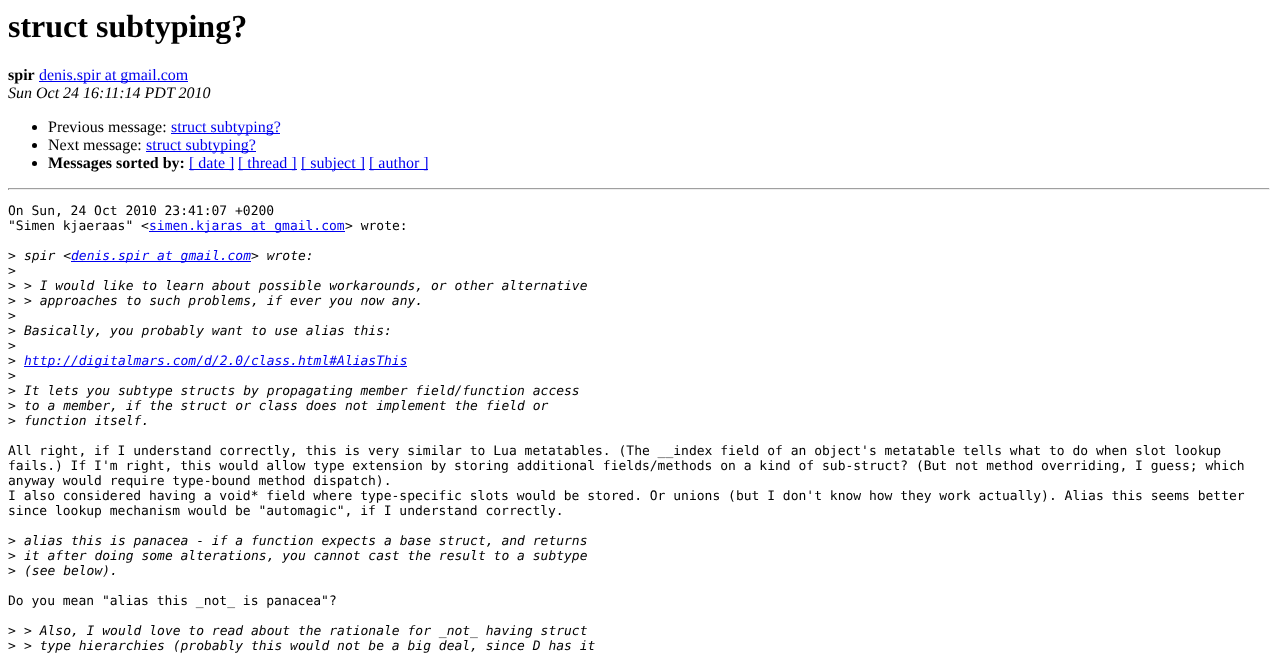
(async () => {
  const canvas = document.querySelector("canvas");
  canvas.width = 1278;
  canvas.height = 660;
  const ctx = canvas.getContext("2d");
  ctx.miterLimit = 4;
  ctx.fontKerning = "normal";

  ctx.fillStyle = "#ffffff";
  ctx.fillRect(0, 0, 1278, 660);
  ctx.fillStyle = "#0000ee";
  ctx.fillRect(39, 81, 149, 1);
  ctx.fillStyle = "#000000";
  ctx.beginPath();
  ctx.arc(34.5, 127.5, 2.5, 0, Math.PI * 2);
  ctx.fill();
  ctx.fillStyle = "#0000ee";
  ctx.fillRect(171, 133, 109, 1);
  ctx.fillStyle = "#000000";
  ctx.beginPath();
  ctx.arc(34.5, 145.5, 2.5, 0, Math.PI * 2);
  ctx.fill();
  ctx.fillStyle = "#0000ee";
  ctx.fillRect(146, 151, 110, 1);
  ctx.fillStyle = "#000000";
  ctx.beginPath();
  ctx.arc(34.5, 163.5, 2.5, 0, Math.PI * 2);
  ctx.fill();
  for (const [x, y, w, h, color] of [
    [189, 169, 45, 1, "#0000ee"],
    [238, 169, 59, 1, "#0000ee"],
    [301, 169, 64, 1, "#0000ee"],
    [369, 169, 59, 1, "#0000ee"],
    [8, 188, 1262, 1, "#9f9f9f"],
    [1269, 188, 1, 2, "#eeeeee"],
    [8, 189, 1262, 1, "#eeeeee"],
    [8, 188, 1, 2, "#9f9f9f"],
    [149, 231, 196, 1, "#0000ee"],
    [71, 261, 180, 1, "#0000ee"],
    [24, 366, 383, 1, "#0000ee"],
  ]) {
    ctx.fillStyle = color;
    ctx.fillRect(x, y, w, h);
  }
  ctx.font = "bold 32px Liberation Serif";
  ctx.fillStyle = "#000000";
  ctx.fillText("struct subtyping?", 8, 37);
  ctx.font = "bold 16px Liberation Serif";
  ctx.fillText("spir", 8, 80);
  ctx.font = "16px Liberation Serif";
  ctx.fillStyle = "#0000ee";
  ctx.fillText("denis.spir at gmail.com", 39, 80);
  ctx.font = "italic 16px Liberation Serif";
  ctx.fillStyle = "#000000";
  ctx.fillText("Sun Oct 24 16:11:14 PDT 2010", 8, 98);
  ctx.font = "16px Liberation Serif";
  ctx.fillText("Previous message:", 48, 132);
  ctx.fillStyle = "#0000ee";
  ctx.fillText("struct subtyping?", 171, 132);
  ctx.fillStyle = "#000000";
  ctx.fillText("Next message:", 48, 150);
  ctx.fillStyle = "#0000ee";
  ctx.fillText("struct subtyping?", 146, 150);
  ctx.font = "bold 16px Liberation Serif";
  ctx.fillStyle = "#000000";
  ctx.fillText("Messages sorted by:", 48, 168);
  ctx.font = "16px Liberation Serif";
  ctx.fillStyle = "#0000ee";
  for (const [text, x, y] of [
    ["[ date ]", 189, 168],
    ["[ thread ]", 238, 168],
    ["[ subject ]", 301, 168],
    ["[ author ]", 369, 168],
  ]) {
    ctx.fillText(text, x, y);
  }
  ctx.font = "13px DejaVu Sans Mono";
  ctx.fillStyle = "#000000";
  ctx.fillText("On Sun, 24 Oct 2010 23:41:07 +0200", 8, 215);
  ctx.fillText("\"Simen kjaeraas\" <", 8, 230);
  ctx.fillStyle = "#0000ee";
  ctx.fillText("simen.kjaras at gmail.com", 149, 230);
  ctx.fillStyle = "#000000";
  ctx.fillText("> wrote:", 345, 230);
  ctx.fillText(">", 8, 260);
  ctx.font = "italic 13px DejaVu Sans Mono";
  ctx.fillText("spir <", 24, 260);
  ctx.fillStyle = "#0000ee";
  ctx.fillText("denis.spir at gmail.com", 71, 260);
  ctx.fillStyle = "#000000";
  ctx.fillText("> wrote:", 251, 260);
  ctx.font = "13px DejaVu Sans Mono";
  ctx.fillText(">", 8, 275);
  ctx.fillText(">", 8, 290);
  ctx.font = "italic 13px DejaVu Sans Mono";
  ctx.fillText("> I would like to learn about possible workarounds, or other alternative", 24, 290);
  ctx.font = "13px DejaVu Sans Mono";
  ctx.fillText(">", 8, 305);
  ctx.font = "italic 13px DejaVu Sans Mono";
  ctx.fillText("> approaches to such problems, if ever you now any.", 24, 305);
  ctx.font = "13px DejaVu Sans Mono";
  ctx.fillText(">", 8, 320);
  ctx.fillText(">", 8, 335);
  ctx.font = "italic 13px DejaVu Sans Mono";
  ctx.fillText("Basically, you probably want to use alias this:", 24, 335);
  ctx.font = "13px DejaVu Sans Mono";
  ctx.fillText(">", 8, 350);
  ctx.fillText(">", 8, 365);
  ctx.font = "italic 13px DejaVu Sans Mono";
  ctx.fillStyle = "#0000ee";
  ctx.fillText("http://digitalmars.com/d/2.0/class.html#AliasThis", 24, 365);
  ctx.font = "13px DejaVu Sans Mono";
  ctx.fillStyle = "#000000";
  ctx.fillText(">", 8, 380);
  ctx.fillText(">", 8, 395);
  ctx.font = "italic 13px DejaVu Sans Mono";
  ctx.fillText("It lets you subtype structs by propagating member field/function access", 24, 395);
  ctx.font = "13px DejaVu Sans Mono";
  ctx.fillText(">", 8, 410);
  ctx.font = "italic 13px DejaVu Sans Mono";
  ctx.fillText("to a member, if the struct or class does not implement the field or", 24, 410);
  ctx.font = "13px DejaVu Sans Mono";
  ctx.fillText(">", 8, 425);
  ctx.font = "italic 13px DejaVu Sans Mono";
  ctx.fillText("function itself.", 24, 425);
  ctx.font = "13px DejaVu Sans Mono";
  for (const [text, x, y] of [
    ["All right, if I understand correctly, this is very similar to Lua metatables. (The __index field of an object's metatable tells what to do when slot lookup", 8, 455],
    ["fails.) If I'm right, this would allow type extension by storing additional fields/methods on a kind of sub-struct? (But not method overriding, I guess; which", 8, 470],
    ["anyway would require type-bound method dispatch).", 8, 485],
    ["I also considered having a void* field where type-specific slots would be stored. Or unions (but I don't know how they work actually). Alias this seems better", 8, 500],
    ["since lookup mechanism would be \"automagic\", if I understand correctly.", 8, 515],
    [">", 8, 545],
  ]) {
    ctx.fillText(text, x, y);
  }
  ctx.font = "italic 13px DejaVu Sans Mono";
  ctx.fillText("alias this is panacea - if a function expects a base struct, and returns", 24, 545);
  ctx.font = "13px DejaVu Sans Mono";
  ctx.fillText(">", 8, 560);
  ctx.font = "italic 13px DejaVu Sans Mono";
  ctx.fillText("it after doing some alterations, you cannot cast the result to a subtype", 24, 560);
  ctx.font = "13px DejaVu Sans Mono";
  ctx.fillText(">", 8, 575);
  ctx.font = "italic 13px DejaVu Sans Mono";
  ctx.fillText("(see below).", 24, 575);
  ctx.font = "13px DejaVu Sans Mono";
  ctx.fillText("Do you mean \"alias this _not_ is panacea\"?", 8, 605);
  ctx.fillText(">", 8, 635);
  ctx.font = "italic 13px DejaVu Sans Mono";
  ctx.fillText("> Also, I would love to read about the rationale for _not_ having struct", 24, 635);
  ctx.font = "13px DejaVu Sans Mono";
  ctx.fillText(">", 8, 650);
  ctx.font = "italic 13px DejaVu Sans Mono";
  ctx.fillText("> type hierarchies (probably this would not be a big deal, since D has it", 24, 650);
})();
